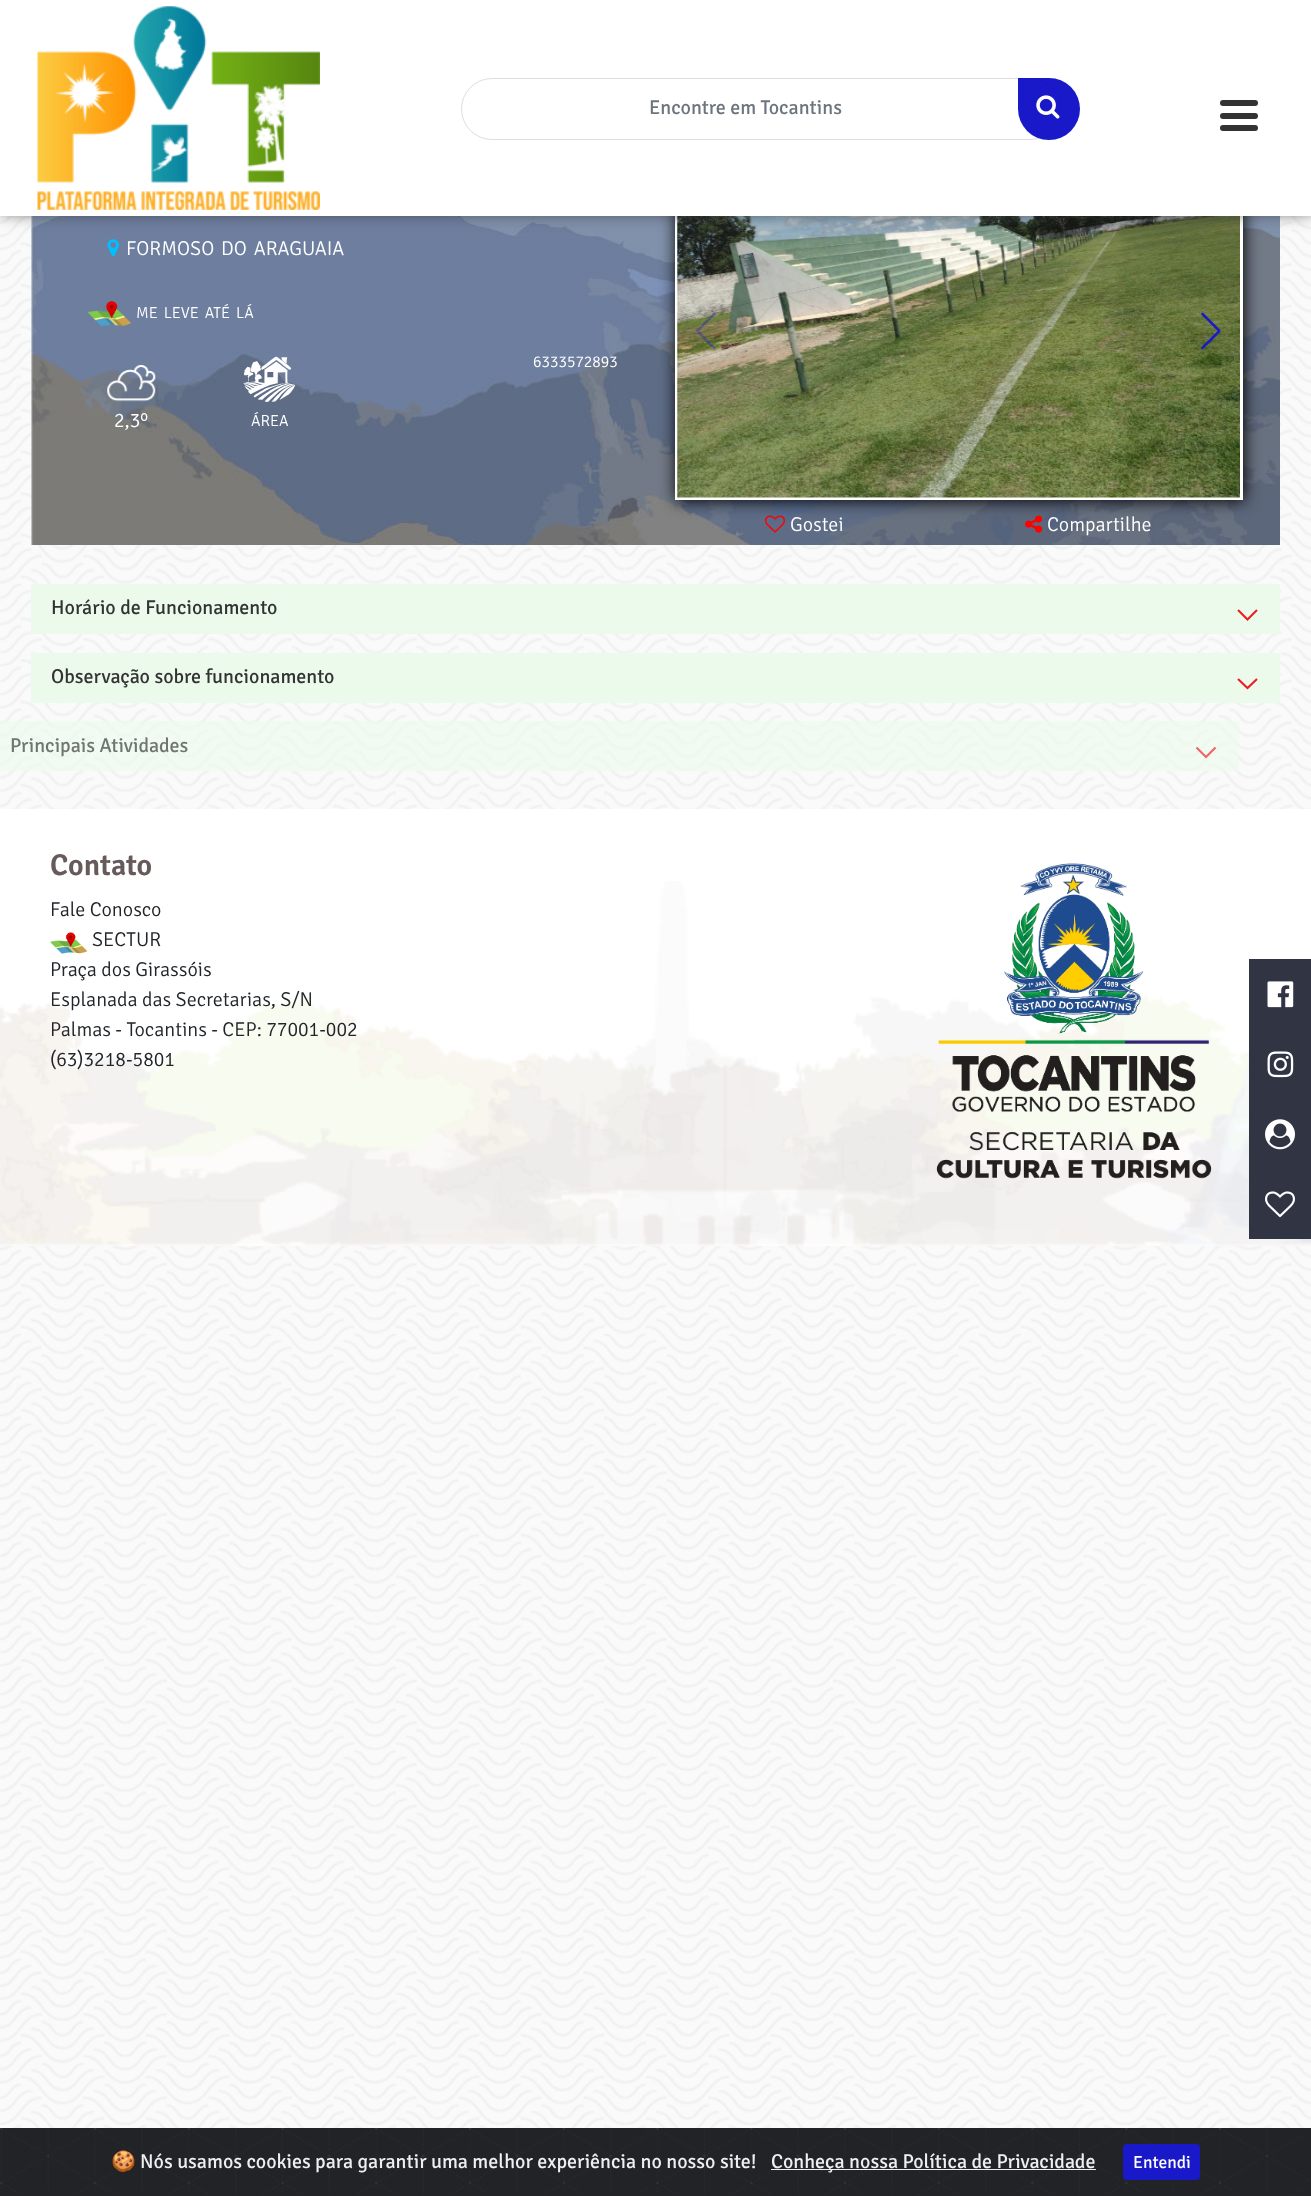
(async () => {
  const canvas = document.querySelector("canvas");
  canvas.width = 1311;
  canvas.height = 2196;
  const ctx = canvas.getContext("2d");
  ctx.miterLimit = 4;
  ctx.fontKerning = "normal";
  async function loadImage(src) {
    const img = new Image();
    img.src = src;
    await img.decode();
    return img;
  }
  let path;

  ctx.fillStyle = "#ffffff";
  ctx.fillRect(0, 0, 1311, 2196);
  ctx.drawImage(await loadImage("img/1.png"), 0, 216, 1311, 1912);
  ctx.drawImage(await loadImage("img/4.png"), 31, 216, 1249, 329);
  ctx.drawImage(await loadImage("img/12.png"), 765, 515, 20, 18);
  ctx.drawImage(await loadImage("img/13.png"), 1025, 515, 18, 18);
  ctx.fillStyle = "#000000";
  ctx.filter = "blur(8px)";
  ctx.beginPath();
  ctx.rect(676, 164, 568, 337);
  ctx.fill();
  ctx.filter = "none";
  ctx.strokeStyle = "#ffffff";
  ctx.lineWidth = 3;
  ctx.strokeRect(676.5, 164.5, 565, 334);
  ctx.drawImage(await loadImage("img/9.png"), 677, 216, 563, 282);
  ctx.fillStyle = "#333333";
  ctx.filter = "blur(9px)";
  ctx.beginPath();
  ctx.rect(1, -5, 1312, 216);
  ctx.fill();
  ctx.filter = "none";
  ctx.fillStyle = "#ffffff";
  ctx.fillRect(0, 0, 1311, 216);
  ctx.drawImage(await loadImage("img/2.png"), 37, 6, 283, 204);
  ctx.beginPath();
  ctx.roundRect(461.5, 78.5, 599, 61, 30.5);
  ctx.strokeStyle = "#dedede";
  ctx.lineWidth = 1;
  ctx.stroke();
  ctx.fillStyle = "rgba(0, 0, 196, 0.9)";
  ctx.beginPath();
  ctx.roundRect(1018, 78, 62, 62, [0, 31, 31, 31]);
  ctx.fill();
  ctx.drawImage(await loadImage("img/3.png"), 1036, 95, 24, 24);
  ctx.fillStyle = "#333333";
  ctx.beginPath();
  ctx.roundRect(1220, 100, 38, 6, 3);
  ctx.fill();
  ctx.beginPath();
  ctx.roundRect(1220, 113, 38, 6, 3);
  ctx.fill();
  ctx.beginPath();
  ctx.roundRect(1220, 125, 38, 6, 3);
  ctx.fill();
  ctx.drawImage(await loadImage("img/5.png"), 107, 239, 12, 18);
  ctx.drawImage(await loadImage("img/6.png"), 87, 301, 44, 26);
  ctx.drawImage(await loadImage("img/7.png"), 107, 365, 49, 37);
  ctx.drawImage(await loadImage("img/8.png"), 243, 356, 53, 46);
  ctx.drawImage(await loadImage("img/10.png"), 696, 312, 20, 38);
  ctx.drawImage(await loadImage("img/11.png"), 1201, 312, 20, 38);
  ctx.fillStyle = "#ebfaeb";
  ctx.fillRect(31, 584, 1249, 50);
  path = new Path2D("M1257 610L1247.5 619.5L1238 610");
  ctx.strokeStyle = "#ed1d24";
  ctx.lineWidth = 2.1;
  ctx.stroke(path);
  ctx.fillRect(31, 653, 1249, 50);
  path = new Path2D("M1257 679L1247.5 688L1238 679");
  ctx.stroke(path);
  ctx.fillStyle = "rgba(235, 250, 235, 0.67)";
  ctx.fillRect(0, 721, 1239, 50);
  path = new Path2D("M1215.5 747.5L1206 757L1196.5 747.5");
  ctx.strokeStyle = "rgba(237, 29, 36, 0.67)";
  ctx.stroke(path);
  ctx.fillStyle = "#ffffff";
  ctx.fillRect(0, 809, 1311, 437);
  ctx.drawImage(await loadImage("img/14.png"), 0, 881, 1311, 365);
  ctx.drawImage(await loadImage("img/15.png"), 50, 932, 38, 22);
  ctx.drawImage(await loadImage("img/16.png"), 936, 863, 276, 316);
  ctx.fillStyle = "#313443";
  ctx.fillRect(1249, 959, 62, 280);
  ctx.drawImage(await loadImage("img/17.png"), 1267, 981, 27, 27);
  ctx.drawImage(await loadImage("img/18.png"), 1267, 1051, 27, 27);
  ctx.drawImage(await loadImage("img/19.png"), 1265, 1119, 30, 31);
  ctx.drawImage(await loadImage("img/20.png"), 1265, 1191, 30, 27);
  ctx.fillStyle = "#212327";
  ctx.fillRect(0, 2128, 1311, 68);
  ctx.drawImage(await loadImage("img/21.png"), 0, 2128, 1310, 67);
  ctx.fillStyle = "#ecf0f1";
  ctx.fillRect(771, 2169, 325, 1);
  ctx.fillStyle = "#1919c9";
  ctx.beginPath();
  ctx.roundRect(1123, 2144, 77, 36, 4);
  ctx.fill();
  ctx.font = "20px Signika";
  ctx.fillStyle = "#6c757d";
  ctx.fillText("Encontre em Tocantins", 649, 114);
  ctx.wordSpacing = "2.5px";
  ctx.font = "300 20px Signika";
  ctx.fillStyle = "#ffffff";
  ctx.fillText("FORMOSO DO ARAGUAIA", 126, 255);
  ctx.font = "300 16px Signika";
  ctx.fillText("ME LEVE ATÉ LÁ", 136, 318);
  ctx.wordSpacing = "0px";
  ctx.fillText("6333572893", 533, 367);
  ctx.font = "300 20px Signika";
  ctx.fillText("2,3º", 114, 427);
  ctx.font = "300 16px Signika";
  ctx.fillText("ÁREA", 251, 426);
  ctx.font = "300 20px Signika";
  ctx.fillText("Gostei", 790, 531);
  ctx.fillText("Compartilhe", 1047, 531);
  ctx.font = "20px Signika";
  ctx.fillStyle = "#333333";
  ctx.fillText("Horário de Funcionamento", 51, 614);
  ctx.fillText("Observação sobre funcionamento", 51, 683);
  ctx.fillStyle = "#717571";
  ctx.fillText("Principais Atividades", 10, 752);
  ctx.font = "600 30px Signika";
  ctx.fillStyle = "#665a5a";
  ctx.fillText("Contato", 50, 875);
  ctx.font = "300 20px Signika";
  ctx.fillStyle = "#212529";
  for (const [text, x, y] of [
    ["Fale Conosco", 50, 916],
    ["SECTUR", 92, 946],
    ["Praça dos Girassóis", 50, 976],
    ["Esplanada das Secretarias, S/N", 50, 1006],
    ["Palmas - Tocantins - CEP: 77001-002", 50, 1036],
    ["(63)3218-5801", 50, 1066],
  ]) {
    ctx.fillText(text, x, y);
  }
  ctx.font = "20px Noto Color Emoji";
  ctx.fillStyle = "#ecf0f1";
  ctx.fillText("🍪", 111, 2168);
  ctx.font = "20px Signika";
  ctx.fillText("Nós usamos cookies para garantir uma melhor experiência no nosso site!", 140, 2168);
  ctx.fillText("Conheça nossa Política de Privacidade", 771, 2168);
  ctx.font = "17.5px Signika";
  ctx.fillStyle = "#ffffff";
  ctx.fillText("Entendi", 1133, 2168);
})();
